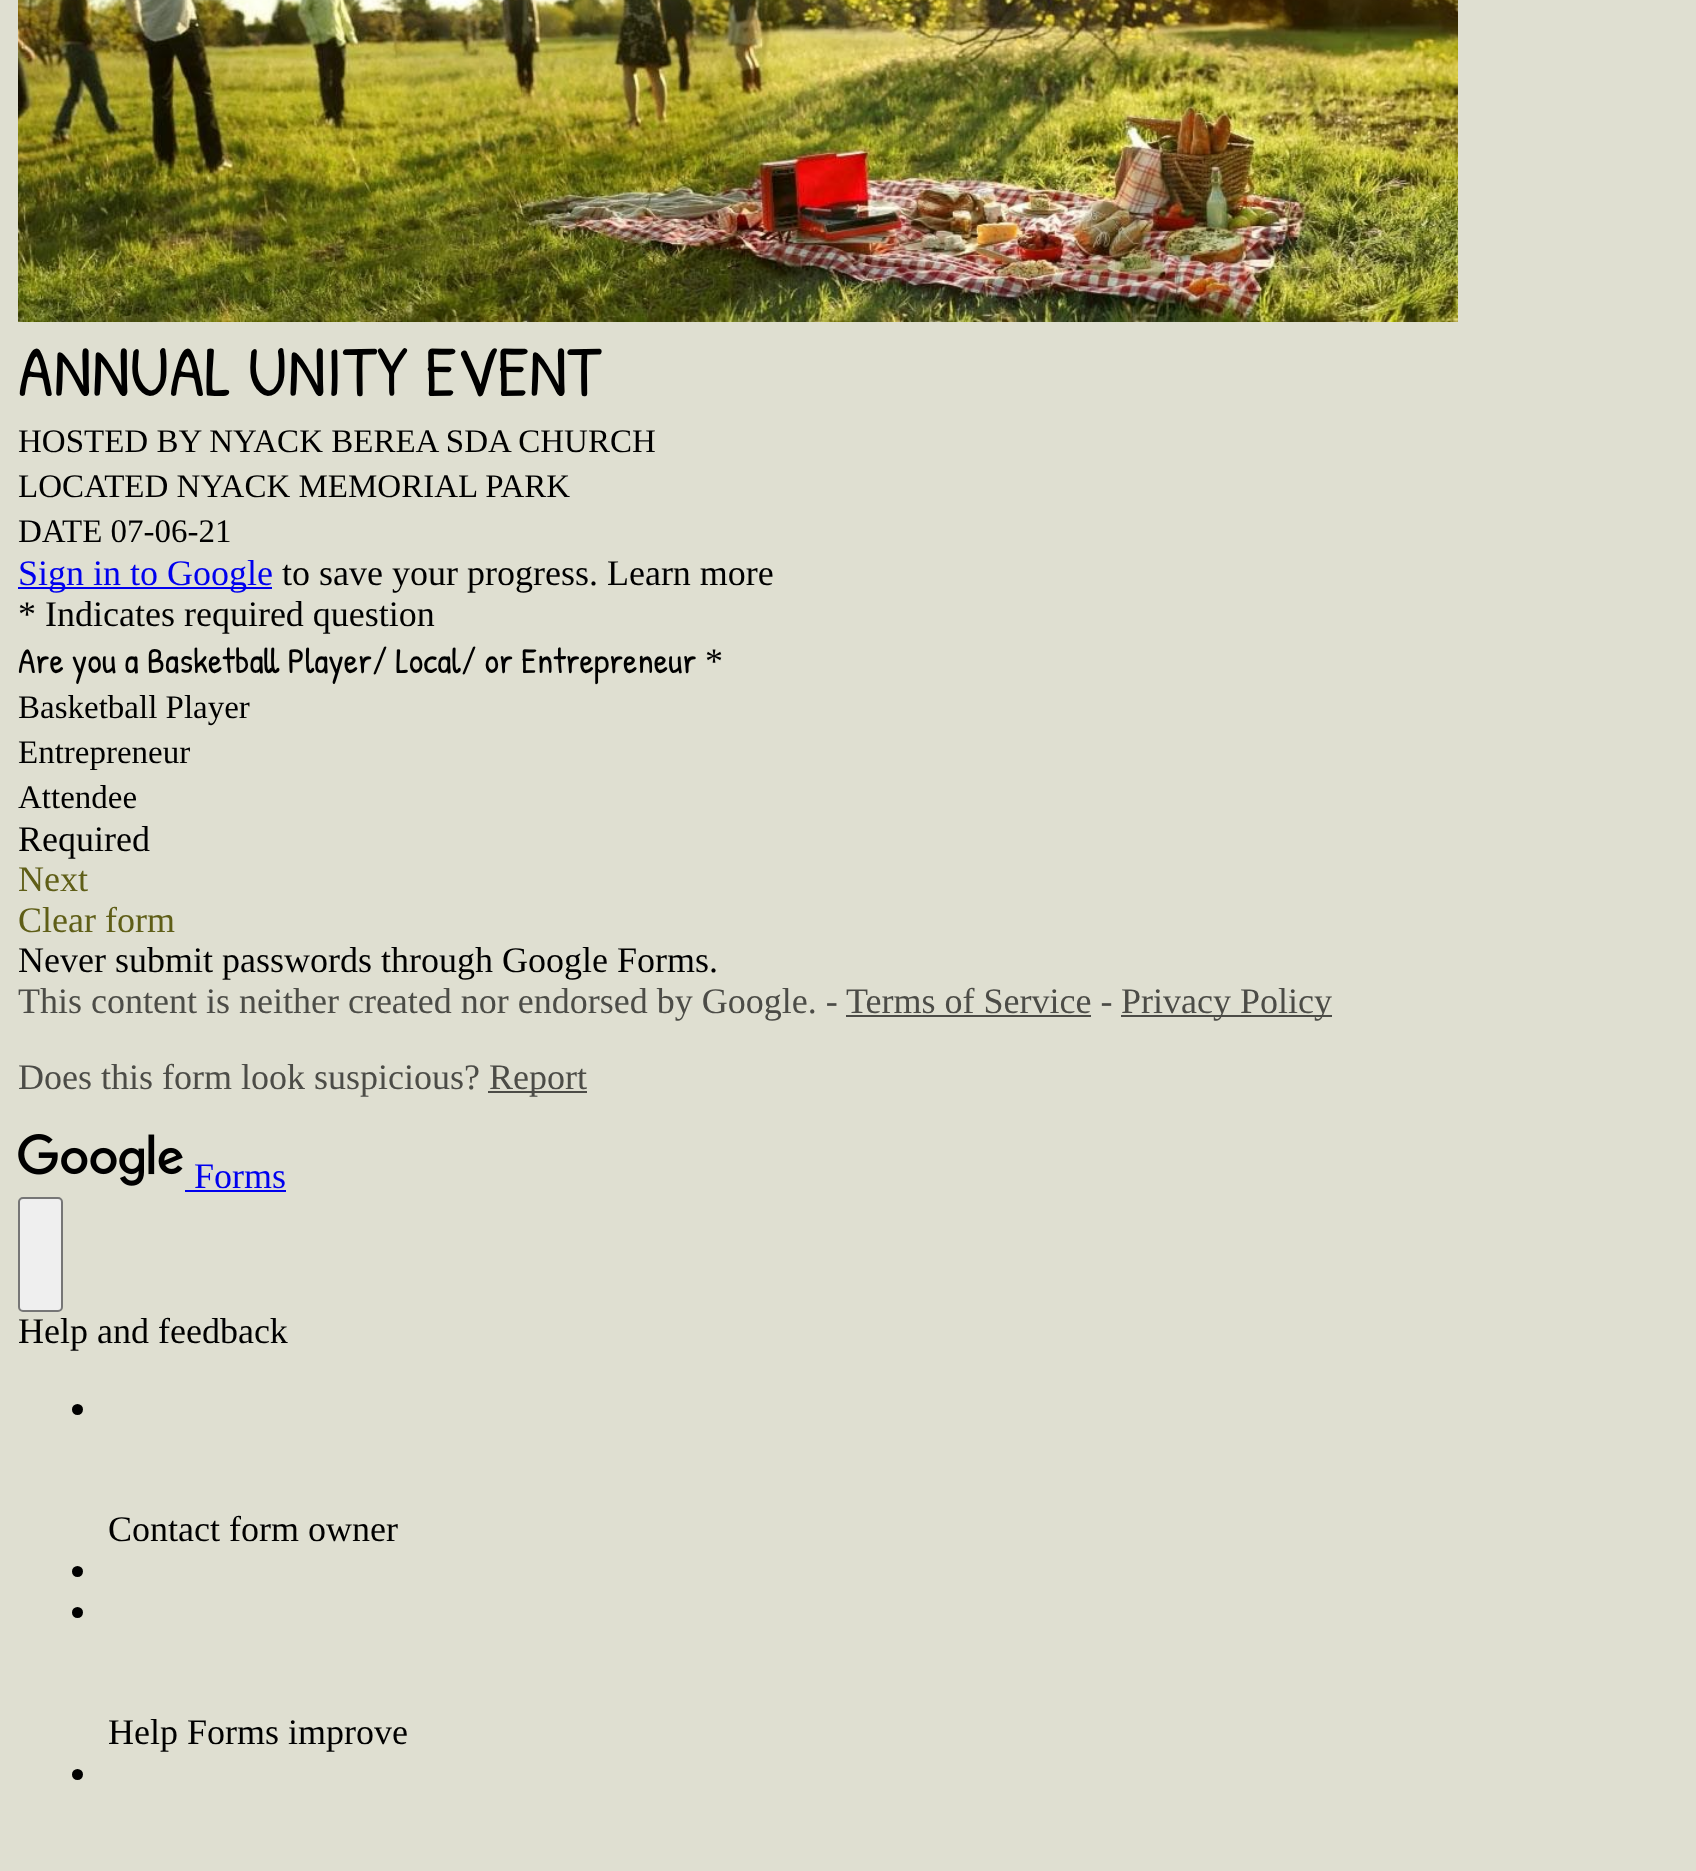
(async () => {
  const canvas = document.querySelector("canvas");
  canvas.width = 1696;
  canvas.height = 1871;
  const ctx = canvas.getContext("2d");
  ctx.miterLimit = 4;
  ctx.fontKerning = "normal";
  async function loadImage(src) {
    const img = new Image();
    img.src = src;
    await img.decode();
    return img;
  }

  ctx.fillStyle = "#dfdfd1";
  ctx.fillRect(0, 0, 1696, 1871);
  ctx.drawImage(await loadImage("img/1.png"), 18, 0, 1440, 322);
  for (const [x, y, w, h, color] of [
    [18, 587, 254, 2, "#0000ee"],
    [846, 1015, 245, 2, "#4c4c47"],
    [1121, 1015, 211, 2, "#4c4c47"],
    [488, 1091, 99, 2, "#4c4c47"],
  ]) {
    ctx.fillStyle = color;
    ctx.fillRect(x, y, w, h);
  }
  ctx.drawImage(await loadImage("img/2.png"), 18, 1134, 165, 52);
  ctx.fillStyle = "#0000ee";
  ctx.fillRect(185, 1190, 101, 2);
  ctx.fillStyle = "#efefef";
  ctx.beginPath();
  ctx.roundRect(19, 1198, 43, 113, 4);
  ctx.fill();
  ctx.strokeStyle = "#767676";
  ctx.lineWidth = 2;
  ctx.stroke();
  ctx.fillStyle = "#000000";
  ctx.beginPath();
  ctx.arc(77.5, 1409.5, 5.5, 0, Math.PI * 2);
  ctx.fill();
  ctx.beginPath();
  ctx.arc(77.5, 1571.5, 5.5, 0, Math.PI * 2);
  ctx.fill();
  ctx.beginPath();
  ctx.arc(77.5, 1612.5, 5.5, 0, Math.PI * 2);
  ctx.fill();
  ctx.beginPath();
  ctx.arc(77.5, 1774.5, 5.5, 0, Math.PI * 2);
  ctx.fill();
  ctx.font = "72px Patrick Hand";
  ctx.fillText("ANNUAL UNITY EVENT", 18, 396);
  ctx.font = "33px Liberation Serif";
  for (const [text, x, y] of [
    ["HOSTED BY NYACK BEREA SDA CHURCH", 18, 452],
    ["LOCATED NYACK MEMORIAL PARK", 18, 497],
    ["DATE 07-06-21", 18, 542],
  ]) {
    ctx.fillText(text, x, y);
  }
  ctx.font = "36px Liberation Serif";
  ctx.fillStyle = "#0000ee";
  ctx.fillText("Sign in to Google", 18, 585);
  ctx.fillStyle = "#000000";
  ctx.fillText("to save your progress. Learn more", 282, 585);
  ctx.fillText("* Indicates required question", 18, 626);
  ctx.font = "36px Patrick Hand";
  ctx.fillText("Are you a Basketball Player/ Local/ or Entrepreneur", 18, 673);
  ctx.font = "36px Liberation Serif";
  ctx.fillText("*", 705, 673);
  ctx.font = "33px Liberation Serif";
  for (const [text, x, y] of [
    ["Basketball Player", 18, 718],
    ["Entrepreneur", 18, 763],
    ["Attendee", 18, 808],
  ]) {
    ctx.fillText(text, x, y);
  }
  ctx.font = "36px Liberation Serif";
  ctx.fillText("Required", 18, 851);
  ctx.fillStyle = "#5f5e17";
  ctx.fillText("Next", 18, 891);
  ctx.fillText("Clear form", 18, 932);
  ctx.fillStyle = "#000000";
  ctx.fillText("Never submit passwords through Google Forms.", 18, 972);
  ctx.fillStyle = "#4c4c47";
  for (const [text, x, y] of [
    ["This content is neither created nor endorsed by Google. -", 18, 1013],
    ["Terms of Service -", 846, 1013],
    ["Privacy Policy", 1121, 1013],
    ["Does this form look suspicious?", 18, 1089],
    ["Report", 489, 1089],
  ]) {
    ctx.fillText(text, x, y);
  }
  ctx.fillStyle = "#0000ee";
  ctx.fillText("Forms", 194, 1188);
  ctx.fillStyle = "#000000";
  for (const [text, x, y] of [
    ["Help and feedback", 18, 1343],
    ["Contact form owner", 108, 1541],
    ["Help Forms improve", 108, 1744],
  ]) {
    ctx.fillText(text, x, y);
  }
})();
